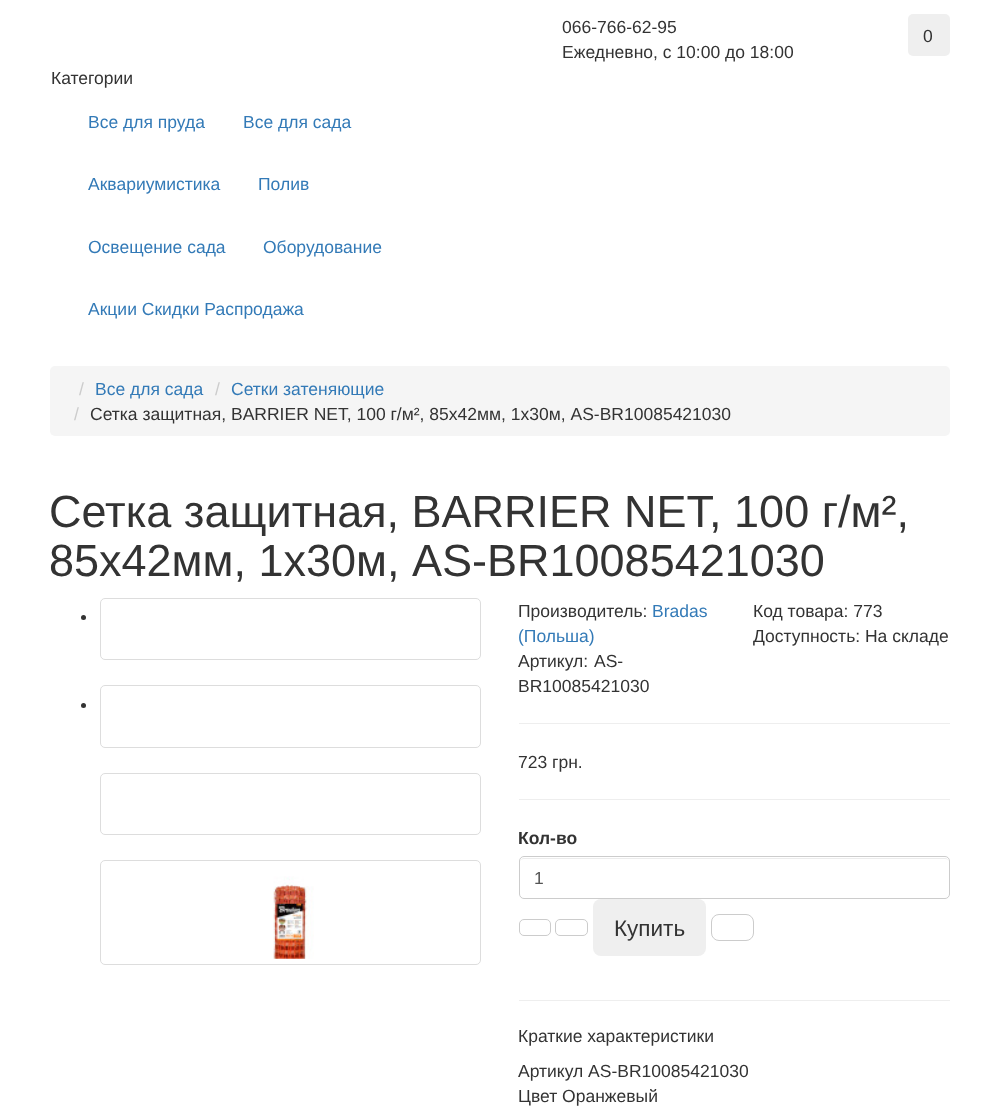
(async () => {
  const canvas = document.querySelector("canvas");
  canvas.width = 998;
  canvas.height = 1117;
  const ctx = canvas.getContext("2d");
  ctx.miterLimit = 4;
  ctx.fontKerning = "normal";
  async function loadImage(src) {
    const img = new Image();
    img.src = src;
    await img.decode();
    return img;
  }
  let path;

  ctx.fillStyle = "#ffffff";
  ctx.fillRect(0, 0, 998, 1117);
  ctx.fillStyle = "#efefef";
  ctx.beginPath();
  ctx.roundRect(908, 14, 42, 42, 5);
  ctx.fill();
  ctx.fillStyle = "#f5f5f5";
  ctx.beginPath();
  ctx.roundRect(50, 366, 900, 70, 5);
  ctx.fill();
  ctx.fillStyle = "#333333";
  ctx.beginPath();
  ctx.arc(83.5, 617.5, 2.5, 0, Math.PI * 2);
  ctx.fill();
  ctx.beginPath();
  ctx.roundRect(100.5, 598.5, 380, 61, 4.5);
  ctx.strokeStyle = "#dddddd";
  ctx.stroke();
  ctx.beginPath();
  ctx.arc(83.5, 705.5, 2.5, 0, Math.PI * 2);
  ctx.fill();
  ctx.beginPath();
  ctx.roundRect(100.5, 685.5, 380, 62, 4.5);
  ctx.stroke();
  ctx.beginPath();
  ctx.roundRect(100.5, 773.5, 380, 61, 4.5);
  ctx.stroke();
  ctx.beginPath();
  ctx.roundRect(100.5, 860.5, 380, 104, 4.5);
  ctx.stroke();
  ctx.drawImage(await loadImage("img/1.png"), 273, 876, 41, 83);
  ctx.fillStyle = "#eeeeee";
  ctx.fillRect(519, 723, 431, 1);
  ctx.fillRect(519, 799, 431, 1);
  ctx.fillStyle = "#ececec";
  path = new Path2D("M524 859H945C947 859 949 860 949 862C949 860 947 858 945 858H524C522 858 520 860 520 862C520 860 522 859 524 859Z");
  ctx.fill(path);
  ctx.beginPath();
  ctx.roundRect(519.5, 856.5, 430, 42, 4.5);
  ctx.strokeStyle = "#cccccc";
  ctx.stroke();
  ctx.beginPath();
  ctx.roundRect(519.5, 919.5, 31, 16, 4.5);
  ctx.stroke();
  ctx.beginPath();
  ctx.roundRect(555.5, 919.5, 32, 16, 4.5);
  ctx.stroke();
  ctx.fillStyle = "#efefef";
  ctx.beginPath();
  ctx.roundRect(593, 899, 113, 57, 8);
  ctx.fill();
  ctx.beginPath();
  ctx.roundRect(711.5, 914.5, 42, 26, 7.5);
  ctx.stroke();
  ctx.fillStyle = "#eeeeee";
  ctx.fillRect(519, 1000, 431, 1);
  ctx.font = "17.5px Liberation Sans";
  ctx.fillStyle = "#333333";
  for (const [text, x, y] of [
    ["066-766-62-95", 562, 33],
    ["Ежедневно, с 10:00 до 18:00", 562, 58],
    ["0", 923, 42],
    ["Категории", 51, 84],
  ]) {
    ctx.fillText(text, x, y);
  }
  ctx.fillStyle = "#337ab7";
  for (const [text, x, y] of [
    ["Все для пруда", 88, 128],
    ["Все для сада", 243, 128],
    ["Аквариумистика", 88, 190],
    ["Полив", 258, 190],
    ["Освещение сада", 88, 253],
    ["Оборудование", 263, 253],
    ["Акции Скидки Распродажа", 88, 315],
  ]) {
    ctx.fillText(text, x, y);
  }
  ctx.fillStyle = "#cccccc";
  ctx.fillText("/", 79, 395);
  ctx.fillStyle = "#337ab7";
  ctx.fillText("Все для сада", 95, 395);
  ctx.fillStyle = "#cccccc";
  ctx.fillText("/", 215, 395);
  ctx.fillStyle = "#337ab7";
  ctx.fillText("Сетки затеняющие", 231, 395);
  ctx.fillStyle = "#cccccc";
  ctx.fillText("/", 74, 420);
  ctx.fillStyle = "#333333";
  ctx.fillText("Сетка защитная, BARRIER NET, 100 г/м², 85х42мм, 1х30м, AS-BR10085421030", 90, 420);
  ctx.font = "45px Liberation Sans";
  ctx.fillText("Сетка защитная, BARRIER NET, 100 г/м²,", 49, 527);
  ctx.fillText("85х42мм, 1х30м, AS-BR10085421030", 49, 576);
  ctx.font = "17.5px Liberation Sans";
  ctx.fillText("Производитель:", 518, 617);
  ctx.fillStyle = "#337ab7";
  ctx.fillText("Bradas", 652, 617);
  ctx.fillText("(Польша)", 518, 642);
  ctx.fillStyle = "#333333";
  ctx.fillText("Код товара: 773", 753, 617);
  ctx.fillText("Доступность: На складе", 753, 642);
  ctx.wordSpacing = "1px";
  ctx.fillText("Артикул: AS-", 518, 667);
  ctx.wordSpacing = "0px";
  ctx.fillText("BR10085421030", 518, 692);
  ctx.fillText("723 грн.", 518, 768);
  ctx.font = "bold 17.5px Liberation Sans";
  ctx.fillText("Кол-во", 518, 844);
  ctx.font = "17.5px Liberation Sans";
  ctx.fillStyle = "#555555";
  ctx.fillText("1", 534, 884);
  ctx.font = "22.5px Liberation Sans";
  ctx.fillStyle = "#333333";
  ctx.fillText("Купить", 614, 936);
  ctx.font = "17.5px Liberation Sans";
  for (const [text, x, y] of [
    ["Краткие характеристики", 518, 1042],
    ["Артикул AS-BR10085421030", 518, 1077],
    ["Цвет Оранжевый", 518, 1102],
  ]) {
    ctx.fillText(text, x, y);
  }
})();
